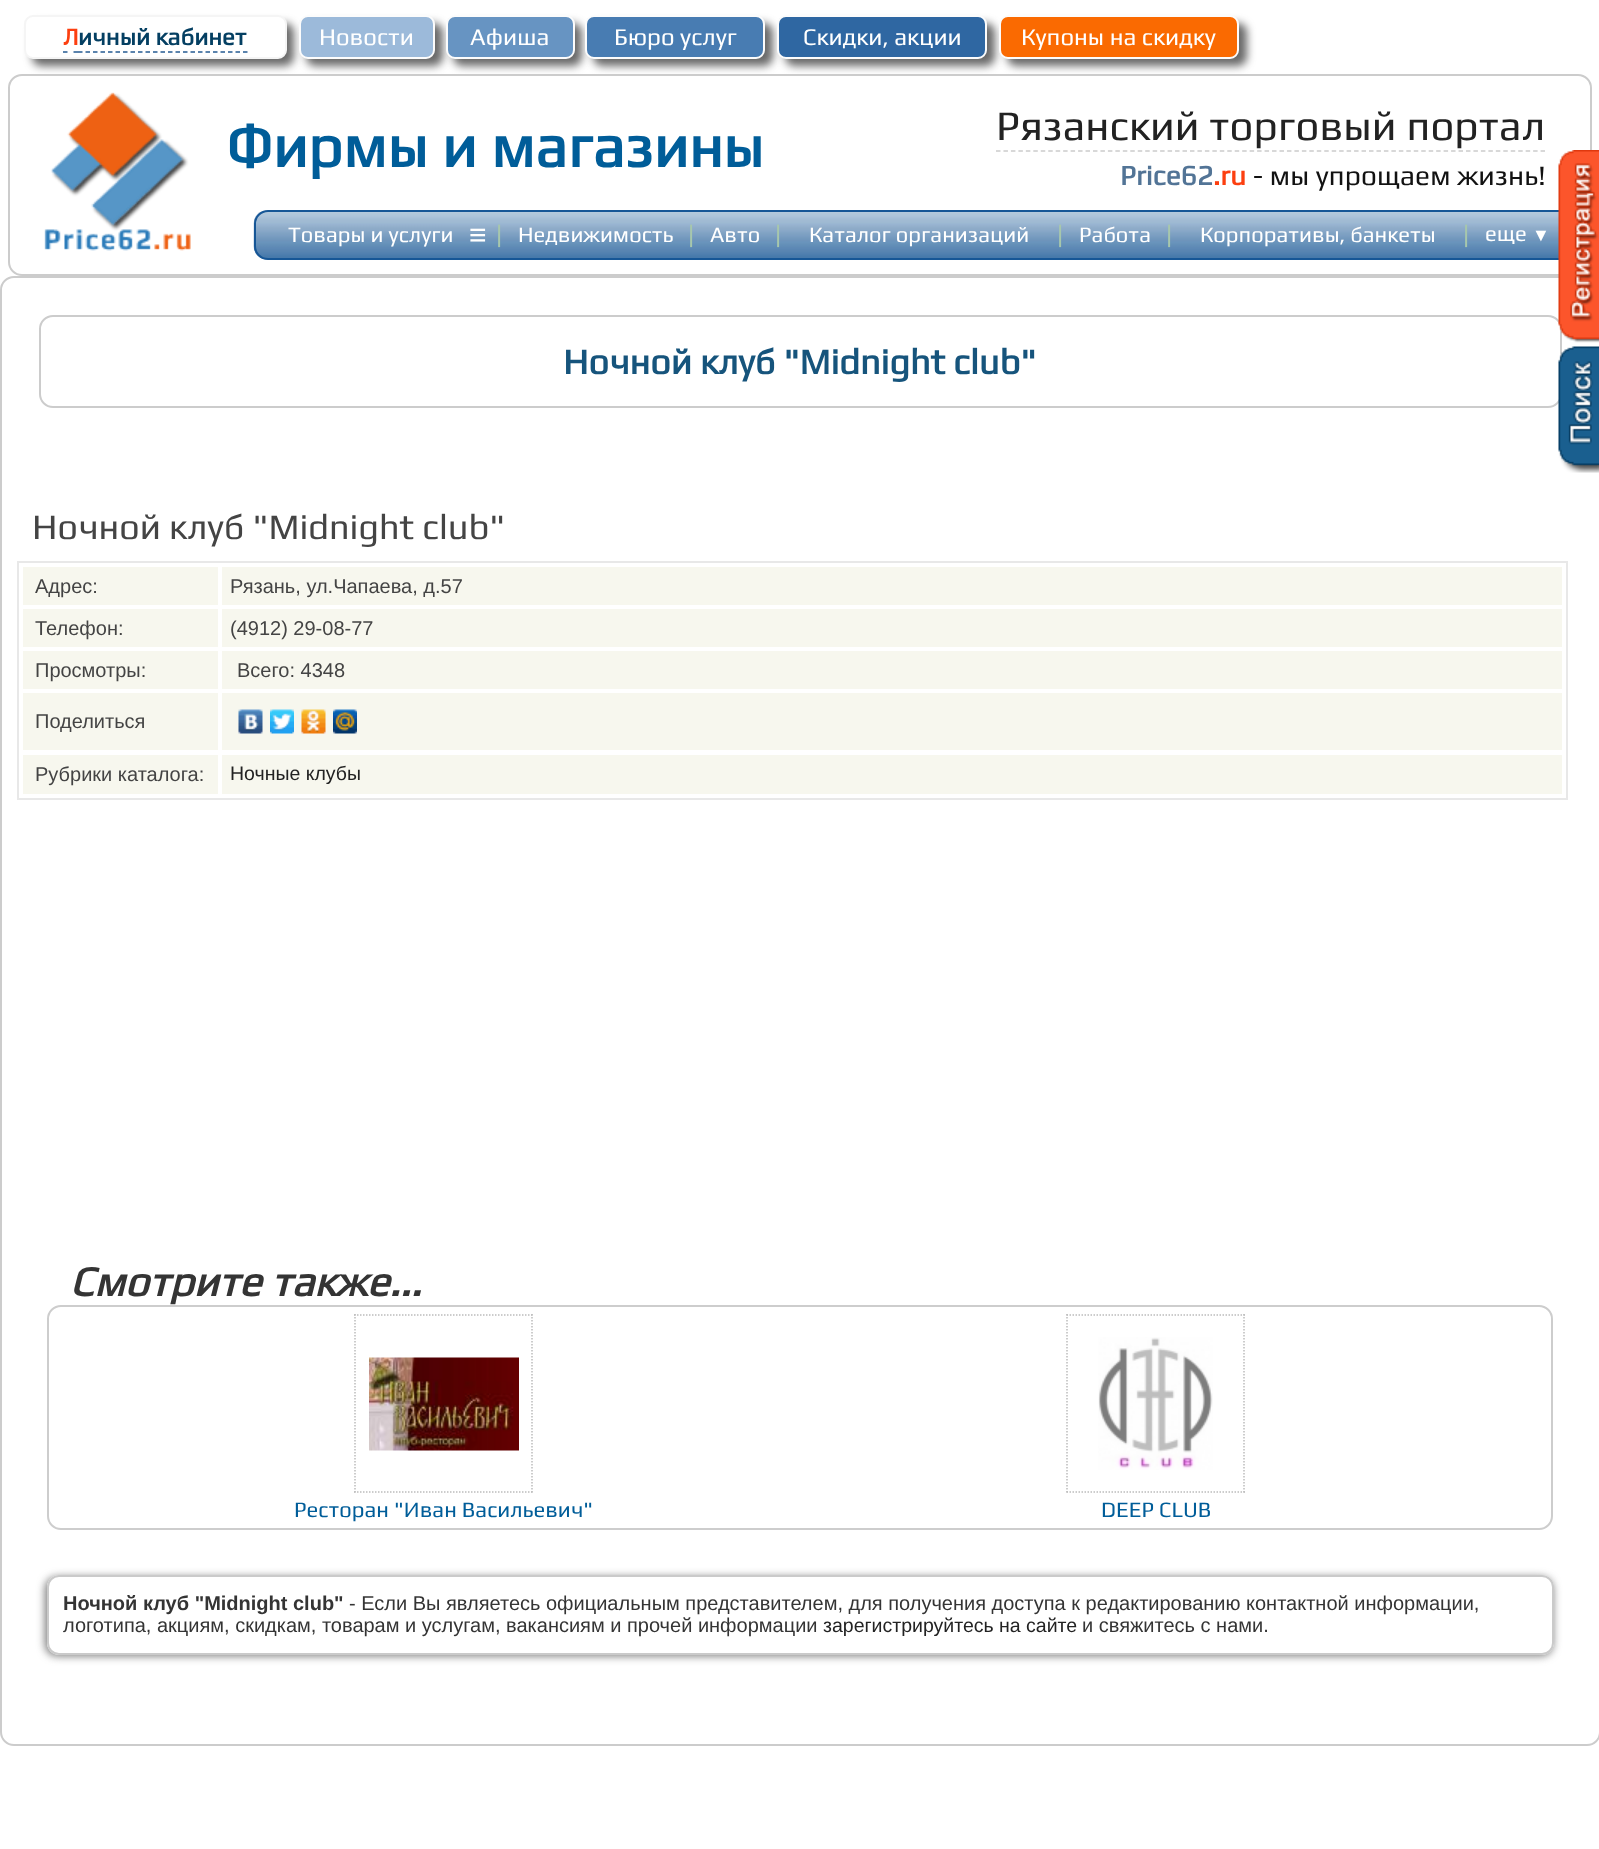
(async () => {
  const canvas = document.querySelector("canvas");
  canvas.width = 1599;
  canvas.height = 1849;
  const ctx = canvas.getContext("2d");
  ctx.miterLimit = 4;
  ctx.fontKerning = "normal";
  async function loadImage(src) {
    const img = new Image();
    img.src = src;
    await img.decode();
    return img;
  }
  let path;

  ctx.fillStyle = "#ffffff";
  ctx.fillRect(0, 0, 1599, 1849);
  ctx.fillStyle = "rgba(68, 68, 68, 0.8)";
  ctx.filter = "blur(4px)";
  ctx.beginPath();
  ctx.roundRect(32, 23, 262, 43, 9);
  ctx.fill();
  ctx.filter = "none";
  ctx.fillStyle = "#ffffff";
  ctx.beginPath();
  ctx.roundRect(25, 16, 261, 42, 8);
  ctx.fill();
  ctx.strokeStyle = "#f5f5f5";
  ctx.lineWidth = 2;
  ctx.stroke();
  path = new Path2D("M63 52H67.5M73.5 52H78");
  ctx.strokeStyle = "#255b92";
  ctx.lineWidth = 1.5;
  ctx.stroke(path);
  path = new Path2D("M78 52H247.5");
  ctx.setLineDash([4.5, 3]);
  ctx.stroke(path);
  ctx.fillStyle = "rgba(68, 68, 68, 0.8)";
  ctx.filter = "blur(4px)";
  ctx.beginPath();
  ctx.roundRect(306, 23, 137, 43, 9);
  ctx.fill();
  ctx.filter = "none";
  ctx.fillStyle = "#9cbada";
  ctx.beginPath();
  ctx.roundRect(300, 16, 134, 42, 8);
  ctx.fill();
  ctx.strokeStyle = "#fcfcfc";
  ctx.lineWidth = 2;
  ctx.setLineDash([]);
  ctx.stroke();
  ctx.fillStyle = "rgba(68, 68, 68, 0.8)";
  ctx.filter = "blur(4px)";
  ctx.beginPath();
  ctx.roundRect(453, 23, 129, 43, 9);
  ctx.fill();
  ctx.filter = "none";
  ctx.fillStyle = "#6794c2";
  ctx.beginPath();
  ctx.roundRect(447, 16, 127, 42, 8);
  ctx.fill();
  ctx.stroke();
  ctx.fillStyle = "rgba(68, 68, 68, 0.8)";
  ctx.filter = "blur(4px)";
  ctx.beginPath();
  ctx.roundRect(593, 23, 180, 43, 9);
  ctx.fill();
  ctx.filter = "none";
  ctx.fillStyle = "#487cb2";
  ctx.beginPath();
  ctx.roundRect(586, 16, 178, 42, 8);
  ctx.fill();
  ctx.stroke();
  ctx.fillStyle = "rgba(68, 68, 68, 0.8)";
  ctx.filter = "blur(4px)";
  ctx.beginPath();
  ctx.roundRect(785, 23, 210, 43, 9);
  ctx.fill();
  ctx.filter = "none";
  ctx.fillStyle = "#2f67a2";
  ctx.beginPath();
  ctx.roundRect(778, 16, 208, 42, 8);
  ctx.fill();
  ctx.stroke();
  ctx.fillStyle = "rgba(68, 68, 68, 0.8)";
  ctx.filter = "blur(4px)";
  ctx.beginPath();
  ctx.roundRect(1007, 23, 240, 43, 9);
  ctx.fill();
  ctx.filter = "none";
  ctx.fillStyle = "#fa6a01";
  ctx.beginPath();
  ctx.roundRect(1000, 16, 238, 42, 8);
  ctx.fill();
  ctx.stroke();
  ctx.beginPath();
  ctx.roundRect(9, 75, 1582, 200, 13);
  ctx.strokeStyle = "#cccccc";
  ctx.stroke();
  ctx.drawImage(await loadImage("img/1.png"), 44, 92, 147, 159);
  path = new Path2D("M996 151H1545");
  ctx.lineWidth = 1.5;
  ctx.setLineDash([4.5, 2.96]);
  ctx.stroke(path);
  ctx.drawImage(await loadImage("img/2.png"), 253, 211, 1306, 49);
  ctx.beginPath();
  ctx.roundRect(255, 211, 1319, 48, 13);
  ctx.strokeStyle = "#165696";
  ctx.lineWidth = 2;
  ctx.setLineDash([]);
  ctx.stroke();
  ctx.beginPath();
  ctx.roundRect(1, 277, 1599, 1468, 13);
  ctx.strokeStyle = "#cccccc";
  ctx.stroke();
  ctx.beginPath();
  ctx.roundRect(40, 316, 1521, 91, 13);
  ctx.stroke();
  ctx.drawImage(await loadImage("img/3.png"), 1558, 150, 41, 193);
  ctx.strokeStyle = "#e8e8e8";
  ctx.strokeRect(18, 562, 1549, 237);
  for (const [x, y, w, h, color] of [
    [23, 567, 195, 38, "#f7f7ee"],
    [222, 567, 1340, 38, "#f7f7ee"],
    [23, 609, 195, 38, "#f7f7ee"],
    [222, 609, 1340, 38, "#f7f7ee"],
    [23, 651, 195, 38, "#f7f7ee"],
    [222, 651, 1340, 38, "#f7f7ee"],
    [23, 693, 195, 57, "#f7f7ee"],
    [222, 693, 1340, 57, "#f7f7ee"],
  ]) {
    ctx.fillStyle = color;
    ctx.fillRect(x, y, w, h);
  }
  ctx.drawImage(await loadImage("img/4.png"), 238, 709, 25, 25);
  ctx.drawImage(await loadImage("img/5.png"), 270, 709, 24, 25);
  ctx.drawImage(await loadImage("img/6.png"), 301, 709, 25, 25);
  ctx.drawImage(await loadImage("img/7.png"), 333, 709, 24, 25);
  ctx.fillRect(23, 755, 195, 39);
  ctx.fillRect(222, 755, 1340, 39);
  ctx.beginPath();
  ctx.roundRect(48, 1306, 1504, 223, 13);
  ctx.strokeStyle = "#cdcdcd";
  ctx.stroke();
  ctx.drawImage(await loadImage("img/8.png"), 369, 1357, 150, 94);
  path = new Path2D("M354 1315H532.5");
  ctx.strokeStyle = "#bcbcbc";
  ctx.lineWidth = 1.5;
  ctx.setLineDash([1.5, 1.5]);
  ctx.stroke(path);
  path = new Path2D("M532 1314V1492.5");
  ctx.stroke(path);
  path = new Path2D("M354 1492H532.5");
  ctx.stroke(path);
  path = new Path2D("M355 1314V1492.5");
  ctx.stroke(path);
  ctx.drawImage(await loadImage("img/9.png"), 1098, 1337, 115, 133);
  path = new Path2D("M1066.5 1315H1245");
  ctx.stroke(path);
  path = new Path2D("M1244 1314V1492.5");
  ctx.stroke(path);
  path = new Path2D("M1066.5 1492H1245");
  ctx.stroke(path);
  path = new Path2D("M1067 1314V1492.5");
  ctx.stroke(path);
  ctx.save();
  path = new Path2D("M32 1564H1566V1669H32ZM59 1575H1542C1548.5 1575 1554 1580.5 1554 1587V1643C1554 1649.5 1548.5 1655 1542 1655H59C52.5 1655 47 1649.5 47 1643V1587C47 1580.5 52.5 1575 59 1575Z");
  ctx.clip(path, "evenodd");
  ctx.fillStyle = "rgba(90, 90, 90, 0.8)";
  ctx.filter = "blur(4px)";
  ctx.beginPath();
  ctx.roundRect(45, 1577, 1508, 79, 12);
  ctx.fill();
  ctx.filter = "none";
  ctx.restore();
  ctx.beginPath();
  ctx.roundRect(48, 1576, 1505, 78, 11);
  ctx.strokeStyle = "#cacaca";
  ctx.lineWidth = 2;
  ctx.setLineDash([]);
  ctx.stroke();
  ctx.drawImage(await loadImage("img/10.png"), 1558, 346, 41, 127);
  ctx.font = "bold 24px Play";
  ctx.fillStyle = "#fc3f10";
  ctx.fillText("Л", 63, 45);
  ctx.fillStyle = "#043f62";
  ctx.fillText("ичный кабинет", 78, 45);
  ctx.font = "24px Play";
  ctx.fillStyle = "#ffffff";
  for (const [text, x, y] of [
    ["Новости", 319, 45],
    ["Афиша", 470, 45],
    ["Бюро услуг", 614, 45],
    ["Скидки, акции", 803, 45],
    ["Купоны на скидку", 1021, 45],
  ]) {
    ctx.fillText(text, x, y);
  }
  ctx.font = "bold 60px Play";
  ctx.fillStyle = "#005d99";
  ctx.fillText("Фирмы и магазины", 226, 167);
  ctx.font = "42px Play";
  ctx.fillStyle = "#222222";
  ctx.fillText("Рязанский торговый портал", 996, 140);
  ctx.font = "bold 28px Play";
  ctx.fillStyle = "#527496";
  ctx.fillText("Price62", 1120, 185);
  ctx.fillStyle = "#fc3f10";
  ctx.fillText(".ru", 1213, 185);
  ctx.font = "28px Play";
  ctx.fillStyle = "#121212";
  ctx.fillText("- мы упрощаем жизнь!", 1253, 185);
  ctx.font = "22px Play";
  ctx.fillStyle = "#ffffff";
  ctx.fillText("Товары и услуги", 288, 242);
  ctx.font = "30px Liberation Sans";
  ctx.fillText("≡", 469, 245);
  ctx.font = "24px Liberation Sans";
  ctx.fillStyle = "#a7c7ac";
  ctx.fillText("|", 496, 242);
  ctx.font = "22px Play";
  ctx.fillStyle = "#ffffff";
  ctx.fillText("Недвижимость", 518, 242);
  ctx.font = "24px Liberation Sans";
  ctx.fillStyle = "#a7c7ac";
  ctx.fillText("|", 688, 242);
  ctx.font = "22px Play";
  ctx.fillStyle = "#ffffff";
  ctx.fillText("Авто", 710, 242);
  ctx.font = "24px Liberation Sans";
  ctx.fillStyle = "#a7c7ac";
  ctx.fillText("|", 775, 242);
  ctx.font = "22px Play";
  ctx.fillStyle = "#ffffff";
  ctx.fillText("Каталог организаций", 809, 242);
  ctx.font = "24px Liberation Sans";
  ctx.fillStyle = "#a7c7ac";
  ctx.fillText("|", 1057, 242);
  ctx.font = "22px Play";
  ctx.fillStyle = "#ffffff";
  ctx.fillText("Работа", 1079, 242);
  ctx.font = "24px Liberation Sans";
  ctx.fillStyle = "#a7c7ac";
  ctx.fillText("|", 1166, 242);
  ctx.font = "22px Play";
  ctx.fillStyle = "#ffffff";
  ctx.fillText("Корпоративы, банкеты", 1200, 242);
  ctx.font = "24px Liberation Sans";
  ctx.fillStyle = "#a7c7ac";
  ctx.fillText("|", 1463, 242);
  ctx.font = "22px Play";
  ctx.fillStyle = "#ffffff";
  ctx.fillText("еще", 1485, 241);
  ctx.font = "18px Liberation Sans";
  ctx.fillText("▼", 1532, 241);
  ctx.font = "bold 36px Play";
  ctx.fillStyle = "#16547c";
  ctx.fillText("Ночной клуб \"Midnight club\"", 563, 374);
  ctx.font = "36px Play";
  ctx.fillStyle = "#444444";
  ctx.fillText("Ночной клуб \"Midnight club\"", 32, 539);
  ctx.font = "20px Liberation Sans";
  for (const [text, x, y] of [
    ["Адрес:", 35, 593],
    ["Рязань, ул.Чапаева, д.57", 230, 593],
    ["Телефон:", 35, 635],
    ["(4912) 29-08-77", 230, 635],
    ["Просмотры:", 35, 677],
    ["Всего: 4348", 237, 677],
    ["Поделиться", 35, 728],
    ["Рубрики каталога:", 35, 781],
  ]) {
    ctx.fillText(text, x, y);
  }
  ctx.font = "19.5px Liberation Sans";
  ctx.fillStyle = "#222222";
  ctx.fillText("Ночные клубы", 230, 780);
  ctx.font = "italic bold 42px Play";
  ctx.fillStyle = "#343434";
  ctx.fillText("Смотрите также...", 70, 1296);
  ctx.font = "22px Play";
  ctx.fillStyle = "#005d99";
  ctx.fillText("Ресторан \"Иван Васильевич\"", 294, 1517);
  ctx.fillText("DEEP CLUB", 1101, 1517);
  ctx.font = "bold 20px Liberation Sans";
  ctx.fillStyle = "#343434";
  ctx.fillText("Ночной клуб \"Midnight club\"", 63, 1610);
  ctx.font = "20px Liberation Sans";
  ctx.fillText("- Если Вы являетесь официальным представителем, для получения доступа к редактированию контактной информации,", 349, 1610);
  ctx.fillText("логотипа, акциям, скидкам, товарам и услугам, вакансиям и прочей информации", 63, 1632);
  ctx.font = "19.5px Liberation Sans";
  ctx.fillStyle = "#222222";
  ctx.fillText("зарегистрируйтесь на сайте", 823, 1632);
  ctx.font = "20px Liberation Sans";
  ctx.fillStyle = "#343434";
  ctx.fillText("и свяжитесь с нами.", 1082, 1632);
})();
